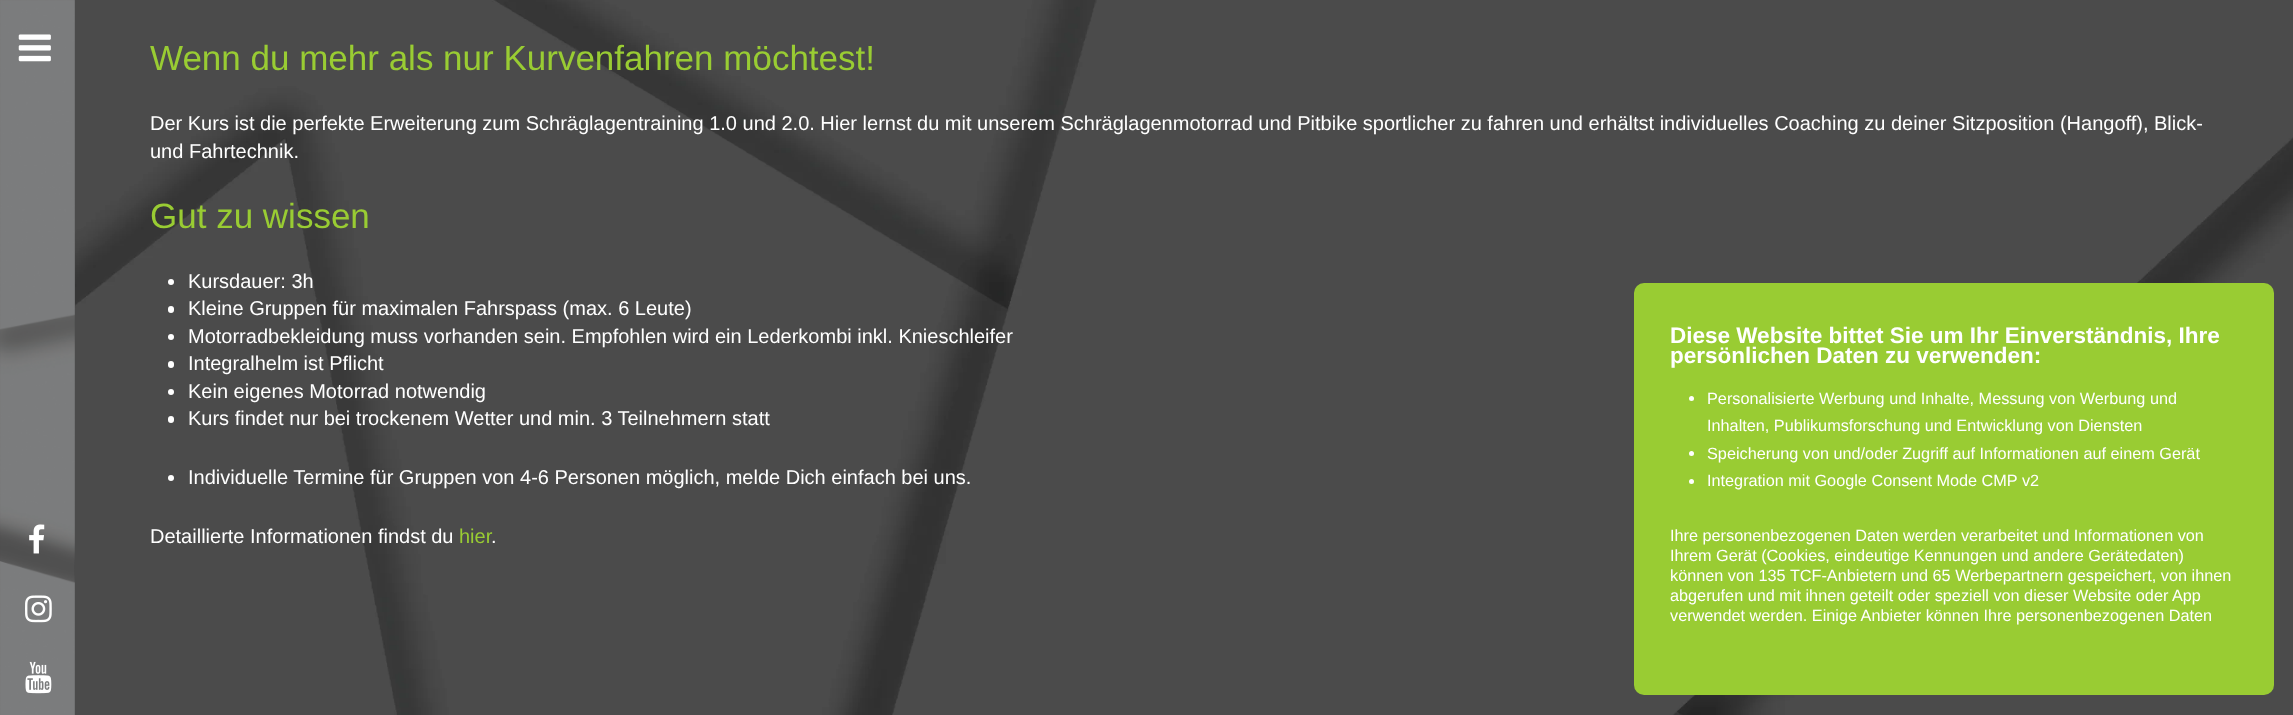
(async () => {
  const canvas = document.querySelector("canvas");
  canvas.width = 2293;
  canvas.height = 715;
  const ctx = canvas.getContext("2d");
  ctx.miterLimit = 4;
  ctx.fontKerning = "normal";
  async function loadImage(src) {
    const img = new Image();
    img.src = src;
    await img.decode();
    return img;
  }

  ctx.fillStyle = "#ffffff";
  ctx.fillRect(0, 0, 2293, 715);
  ctx.drawImage(await loadImage("img/1.png"), 74, 0, 1, 715);
  ctx.drawImage(await loadImage("img/2.png"), 0, 0, 75, 715);
  ctx.drawImage(await loadImage("img/3.png"), 18, 34, 33, 28);
  ctx.drawImage(await loadImage("img/4.png"), 29, 524, 16, 30);
  ctx.drawImage(await loadImage("img/5.png"), 25, 595, 27, 28);
  ctx.drawImage(await loadImage("img/6.png"), 25, 661, 27, 33);
  ctx.fillStyle = "rgba(0, 0, 0, 0.05)";
  ctx.fillRect(74, 0, 1, 715);
  ctx.drawImage(await loadImage("img/7.png"), 75, 0, 2218, 715);
  ctx.fillStyle = "#ffffff";
  ctx.beginPath();
  ctx.arc(171, 282, 3, 0, Math.PI * 2);
  ctx.fill();
  ctx.beginPath();
  ctx.roundRect(168, 306, 6, 7, 3);
  ctx.fill();
  ctx.beginPath();
  ctx.arc(171, 337, 3, 0, Math.PI * 2);
  ctx.fill();
  ctx.beginPath();
  ctx.roundRect(168, 361, 6, 7, 3);
  ctx.fill();
  ctx.beginPath();
  ctx.arc(171, 392, 3, 0, Math.PI * 2);
  ctx.fill();
  ctx.beginPath();
  ctx.roundRect(168, 416, 6, 7, 3);
  ctx.fill();
  ctx.beginPath();
  ctx.arc(171, 478, 3, 0, Math.PI * 2);
  ctx.fill();
  ctx.fillStyle = "#99cc33";
  ctx.beginPath();
  ctx.roundRect(1634, 283, 640, 412, 10);
  ctx.fill();
  ctx.fillStyle = "#ffffff";
  ctx.beginPath();
  ctx.arc(1691.5, 398.5, 2.5, 0, Math.PI * 2);
  ctx.fill();
  ctx.beginPath();
  ctx.arc(1691.5, 453.5, 2.5, 0, Math.PI * 2);
  ctx.fill();
  ctx.beginPath();
  ctx.arc(1691.5, 481.5, 2.5, 0, Math.PI * 2);
  ctx.fill();
  ctx.font = "35px Liberation Sans";
  ctx.fillStyle = "#99cc33";
  ctx.fillText("Wenn du mehr als nur Kurvenfahren möchtest!", 150, 70);
  ctx.font = "20px Liberation Sans";
  ctx.fillStyle = "#ffffff";
  ctx.fillText("Der Kurs ist die perfekte Erweiterung zum Schräglagentraining 1.0 und 2.0. Hier lernst du mit unserem Schräglagenmotorrad und Pitbike sportlicher zu fahren und erhältst individuelles Coaching zu deiner Sitzposition (Hangoff), Blick-", 150, 130);
  ctx.fillText("und Fahrtechnik.", 150, 158);
  ctx.font = "35px Liberation Sans";
  ctx.fillStyle = "#99cc33";
  ctx.fillText("Gut zu wissen", 150, 228);
  ctx.font = "20px Liberation Sans";
  ctx.fillStyle = "#ffffff";
  for (const [text, x, y] of [
    ["Kursdauer: 3h", 188, 288],
    ["Kleine Gruppen für maximalen Fahrspass (max. 6 Leute)", 188, 315],
    ["Motorradbekleidung muss vorhanden sein. Empfohlen wird ein Lederkombi inkl. Knieschleifer", 188, 343],
    ["Integralhelm ist Pflicht", 188, 370],
    ["Kein eigenes Motorrad notwendig", 188, 398],
    ["Kurs findet nur bei trockenem Wetter und min. 3 Teilnehmern statt", 188, 425],
    ["Individuelle Termine für Gruppen von 4-6 Personen möglich, melde Dich einfach bei uns.", 188, 484],
    ["Detaillierte Informationen findst du", 150, 543],
  ]) {
    ctx.fillText(text, x, y);
  }
  ctx.fillStyle = "#99cc33";
  ctx.fillText("hier", 459, 543);
  ctx.fillStyle = "#ffffff";
  ctx.fillText(".", 491, 543);
  ctx.font = "bold 22.5px Liberation Sans";
  ctx.fillText("Diese Website bittet Sie um Ihr Einverständnis, Ihre", 1670, 343);
  ctx.fillText("persönlichen Daten zu verwenden:", 1670, 363);
  ctx.font = "16.25px Liberation Sans";
  for (const [text, x, y] of [
    ["Personalisierte Werbung und Inhalte, Messung von Werbung und", 1707, 404],
    ["Inhalten, Publikumsforschung und Entwicklung von Diensten", 1707, 431],
    ["Speicherung von und/oder Zugriff auf Informationen auf einem Gerät", 1707, 459],
    ["Integration mit Google Consent Mode CMP v2", 1707, 486],
    ["Ihre personenbezogenen Daten werden verarbeitet und Informationen von", 1670, 541],
    ["Ihrem Gerät (Cookies, eindeutige Kennungen und andere Gerätedaten)", 1670, 561],
    ["können von 135 TCF-Anbietern und 65 Werbepartnern gespeichert, von ihnen", 1670, 581],
    ["abgerufen und mit ihnen geteilt oder speziell von dieser Website oder App", 1670, 601],
    ["verwendet werden. Einige Anbieter können Ihre personenbezogenen Daten", 1670, 621],
  ]) {
    ctx.fillText(text, x, y);
  }
})();
